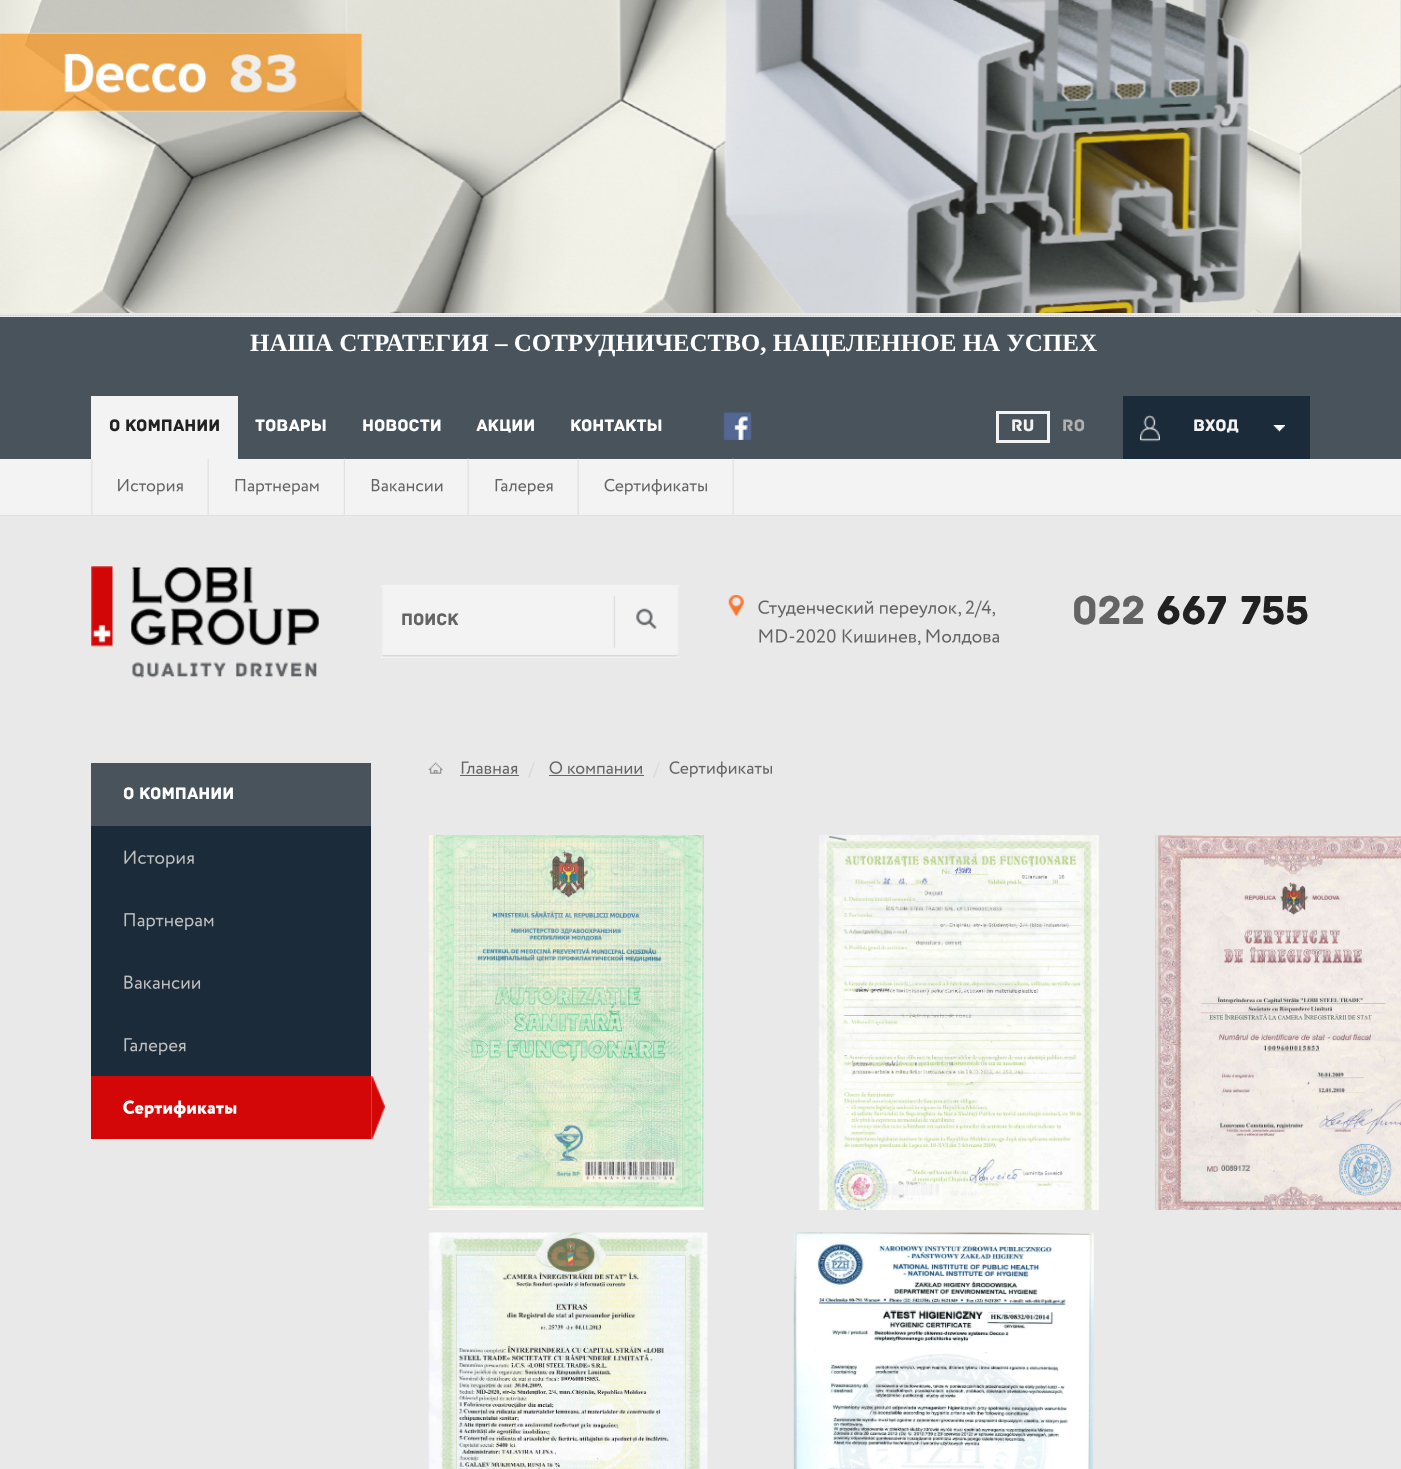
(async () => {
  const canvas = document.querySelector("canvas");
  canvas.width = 1401;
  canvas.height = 1469;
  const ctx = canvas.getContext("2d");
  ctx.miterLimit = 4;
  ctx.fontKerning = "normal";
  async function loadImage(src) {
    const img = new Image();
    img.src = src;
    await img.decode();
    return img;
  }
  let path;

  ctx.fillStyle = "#e9e9e9";
  ctx.fillRect(0, 0, 1401, 1469);
  ctx.fillStyle = "#49535c";
  ctx.fillRect(0, 0, 1401, 459);
  ctx.drawImage(await loadImage("img/1.png"), 0, 0, 1401, 313);
  ctx.fillStyle = "#e9e9e9";
  ctx.fillRect(0, 313, 1401, 4);
  path = new Path2D("M0 315.5H1401");
  ctx.strokeStyle = "#cccccc";
  ctx.lineWidth = 1.2;
  ctx.setLineDash([1.25, 1.25]);
  ctx.stroke(path);
  ctx.fillStyle = "#f3f3f3";
  ctx.fillRect(91, 396, 147, 63);
  ctx.drawImage(await loadImage("img/2.png"), 723, 412, 29, 28);
  ctx.strokeStyle = "#f3f3f3";
  ctx.lineWidth = 3;
  ctx.setLineDash([]);
  ctx.strokeRect(997.5, 412.5, 51, 29);
  ctx.fillStyle = "#1b2b39";
  ctx.fillRect(1123, 396, 187, 63);
  ctx.drawImage(await loadImage("img/3.png"), 1140, 415, 20, 27);
  ctx.drawImage(await loadImage("img/4.png"), 1273, 425, 12, 7);
  ctx.fillStyle = "#f3f3f3";
  ctx.fillRect(0, 459, 1401, 56);
  ctx.fillStyle = "#e0e0e0";
  ctx.fillRect(0, 515, 1401, 1);
  ctx.drawImage(await loadImage("img/5.png"), 91, 459, 118, 56);
  ctx.drawImage(await loadImage("img/6.png"), 118, 479, 65, 16);
  ctx.drawImage(await loadImage("img/7.png"), 343, 458, 2, 57);
  ctx.drawImage(await loadImage("img/8.png"), 235, 479, 84, 16);
  ctx.drawImage(await loadImage("img/9.png"), 467, 458, 2, 57);
  ctx.drawImage(await loadImage("img/10.png"), 371, 478, 72, 14);
  ctx.drawImage(await loadImage("img/9.png"), 577, 458, 2, 57);
  ctx.drawImage(await loadImage("img/11.png"), 495, 479, 58, 16);
  ctx.drawImage(await loadImage("img/9.png"), 732, 458, 2, 57);
  ctx.drawImage(await loadImage("img/12.png"), 604, 478, 103, 17);
  ctx.drawImage(await loadImage("img/13.png"), 91, 566, 228, 112);
  ctx.fillStyle = "#f3f3f3";
  ctx.fillRect(381, 585, 298, 73);
  ctx.drawImage(await loadImage("img/14.png"), 381, 587, 298, 70);
  ctx.drawImage(await loadImage("img/15.png"), 636, 608, 21, 21);
  ctx.drawImage(await loadImage("img/16.png"), 728, 595, 16, 22);
  ctx.drawImage(await loadImage("img/17.png"), 758, 600, 237, 18);
  ctx.drawImage(await loadImage("img/18.png"), 759, 629, 240, 17);
  ctx.fillStyle = "#49535c";
  ctx.fillRect(91, 763, 280, 63);
  ctx.fillStyle = "#1b2b39";
  ctx.fillRect(91, 826, 280, 250);
  ctx.drawImage(await loadImage("img/19.png"), 124, 850, 70, 18);
  ctx.drawImage(await loadImage("img/20.png"), 124, 913, 90, 17);
  ctx.drawImage(await loadImage("img/21.png"), 124, 975, 77, 14);
  ctx.drawImage(await loadImage("img/22.png"), 124, 1038, 62, 17);
  ctx.drawImage(await loadImage("img/23.png"), 371, 1076, 14, 63);
  ctx.fillStyle = "#d30707";
  ctx.fillRect(91, 1076, 280, 63);
  ctx.drawImage(await loadImage("img/24.png"), 123, 1100, 114, 18);
  ctx.drawImage(await loadImage("img/25.png"), 428, 762, 15, 12);
  ctx.drawImage(await loadImage("img/26.png"), 461, 761, 57, 13);
  ctx.fillStyle = "#d9d9d9";
  path = new Path2D("M528 777L534 761.5H535L529.5 777.5Z");
  ctx.fill(path);
  ctx.drawImage(await loadImage("img/27.png"), 549, 761, 93, 13);
  path = new Path2D("M653 777L659 761.5H660L654.5 777.5Z");
  ctx.fill(path);
  ctx.drawImage(await loadImage("img/28.png"), 669, 761, 103, 17);
  ctx.fillStyle = "#646464";
  ctx.fillRect(460, 775, 59, 1);
  ctx.fillRect(549, 775, 95, 1);
  ctx.drawImage(await loadImage("img/29.png"), 428, 835, 276, 375);
  ctx.drawImage(await loadImage("img/30.png"), 818, 835, 281, 375);
  ctx.drawImage(await loadImage("img/31.png"), 1155, 835, 246, 375);
  ctx.drawImage(await loadImage("img/32.png"), 428, 1232, 280, 237);
  ctx.drawImage(await loadImage("img/33.png"), 793, 1232, 301, 237);
  ctx.font = "bold 25px Liberation Serif";
  ctx.fillStyle = "#ffffff";
  ctx.fillText("НАША СТРАТЕГИЯ – СОТРУДНИЧЕСТВО, НАЦЕЛЕННОЕ НА УСПЕХ", 250, 351);
  ctx.font = "17.5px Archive";
  ctx.fillStyle = "#212121";
  ctx.fillText("О КОМПАНИИ", 109, 431);
  ctx.fillStyle = "#ffffff";
  for (const [text, x, y] of [
    ["ТОВАРЫ", 255, 431],
    ["НОВОСТИ", 362, 431],
    ["АКЦИИ", 476, 431],
    ["КОНТАКТЫ", 570, 431],
  ]) {
    ctx.fillText(text, x, y);
  }
  ctx.fillStyle = "#f3f3f3";
  ctx.fillText("RU", 1011, 431);
  ctx.fillStyle = "#b0b0b0";
  ctx.fillText("RO", 1062, 431);
  ctx.fillStyle = "#f3f3f3";
  ctx.fillText("ВХОД", 1193, 431);
  ctx.fillStyle = "#646464";
  ctx.fillText("ПОИСК", 401, 625);
  ctx.font = "42.5px Archive";
  ctx.fillText("022", 1072, 624);
  ctx.fillStyle = "#212121";
  ctx.fillText("667 755", 1156, 624);
  ctx.font = "17.5px Archive";
  ctx.fillStyle = "#ffffff";
  ctx.fillText("О КОМПАНИИ", 123, 799);
})();
